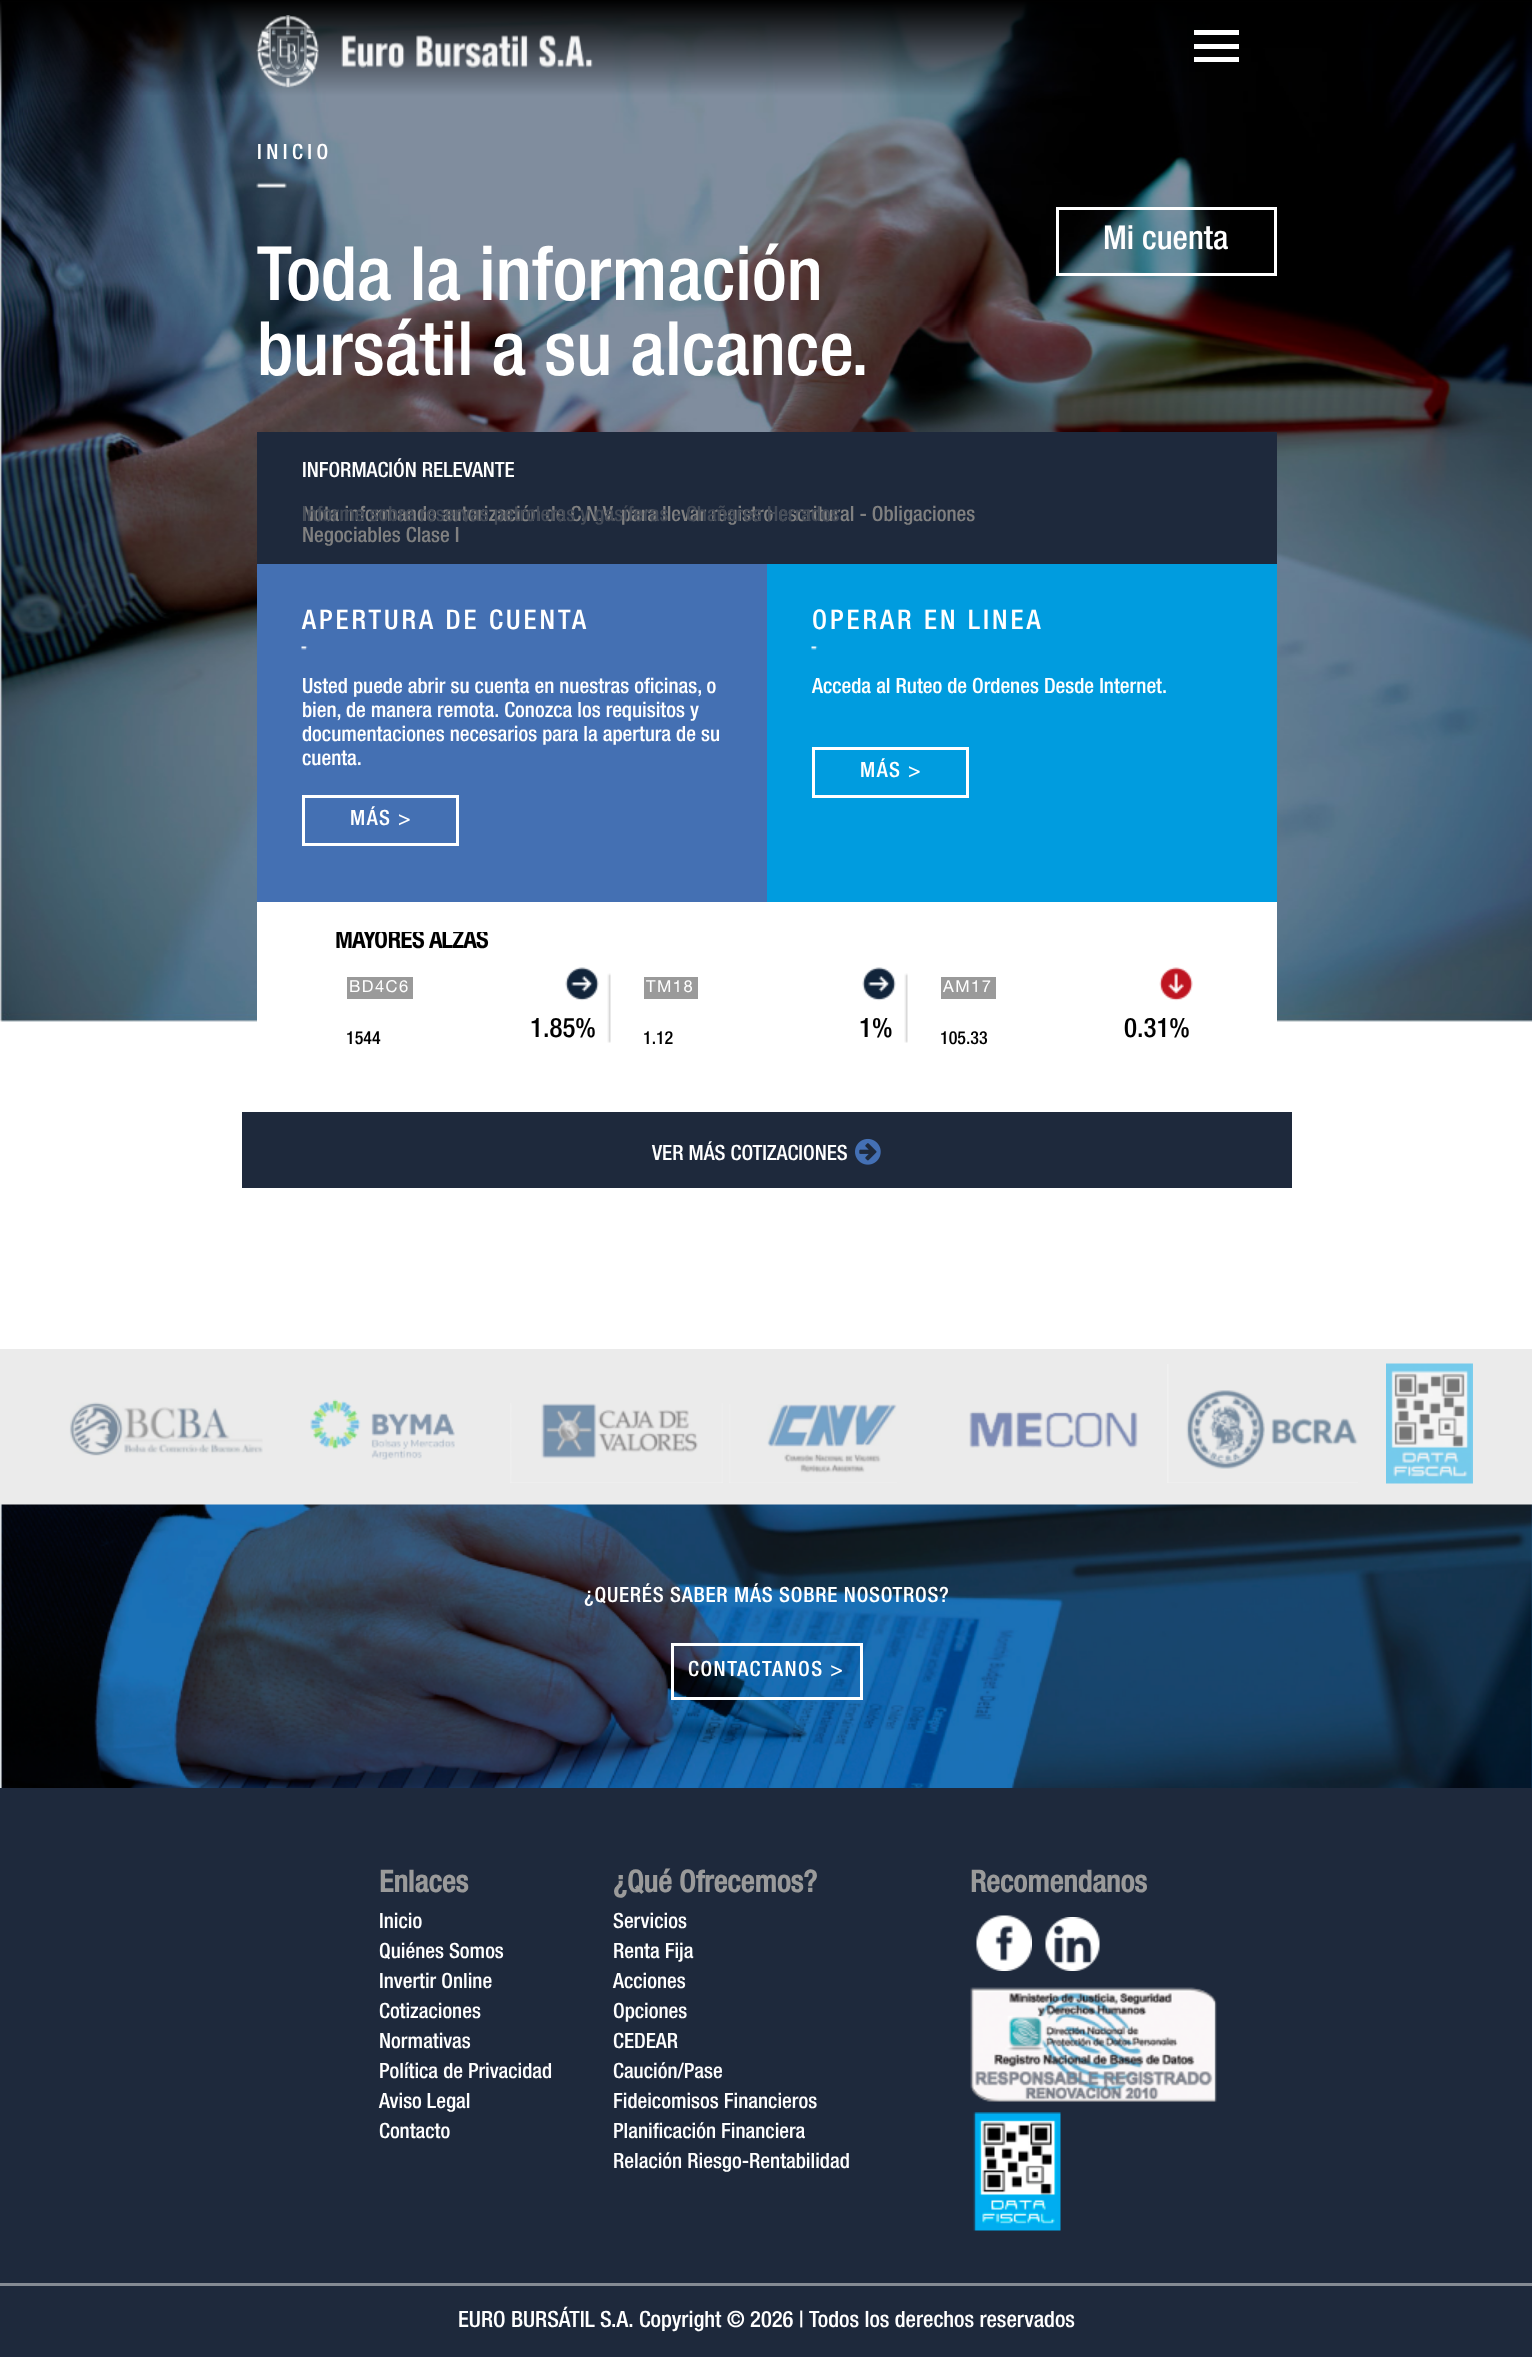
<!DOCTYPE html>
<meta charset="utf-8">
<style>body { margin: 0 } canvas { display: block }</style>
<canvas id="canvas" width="1532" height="2357"></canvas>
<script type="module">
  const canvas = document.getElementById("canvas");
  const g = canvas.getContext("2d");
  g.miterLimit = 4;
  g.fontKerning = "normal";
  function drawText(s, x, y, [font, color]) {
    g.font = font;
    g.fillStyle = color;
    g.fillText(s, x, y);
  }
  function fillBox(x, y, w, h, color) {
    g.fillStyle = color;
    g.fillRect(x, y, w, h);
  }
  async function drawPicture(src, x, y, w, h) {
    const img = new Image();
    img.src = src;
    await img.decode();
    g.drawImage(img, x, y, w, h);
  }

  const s1 = ["500 21px Helvetica Neue", "#FFFFFF"];
  const s2 = ["500 33px Helvetica Neue", "#FFFFFF"];
  const s3 = ["500 75px Helvetica Neue", "#FFFFFF"];
  const s4 = ["500 21px Helvetica Neue", "#808080"];
  const s5 = ["500 21px Helvetica Neue", "#444B57"];
  const s6 = ["500 27px Helvetica Neue", "#FFFFFF"];
  const s7 = ["bold 24px Helvetica Neue", "#000000"];
  const s8 = ["16.5px Helvetica Neue", "#FFFFFF"];
  const s9 = ["500 18px Helvetica Neue", "#000000"];
  const s10 = ["500 27px Helvetica Neue", "#000000"];
  const s11 = ["bold 30px Helvetica Neue", "#9A9A9A"];
  const s12 = ["500 22.5px Helvetica Neue", "#FFFFFF"];

  fillBox(0, 0, 1532, 2357, "#FFFFFF");
  await drawPicture("pic1.png", 0, 0, 1532, 1022);
  await drawPicture("pic2.png", 256, 15, 337, 73);
  fillBox(1194, 30, 45, 5, "#FFFFFF");
  fillBox(1194, 44, 45, 5, "#FFFFFF");
  fillBox(1194, 57, 45, 5, "#FFFFFF");
  await drawPicture("pic3.png", 256, 182, 31, 6);
  g.letterSpacing = "4.5px";
  drawText("INICIO", 257, 159, s1);
  g.strokeStyle = "#FFFFFF";
  g.lineWidth = 3;
  g.strokeRect(1057.5, 208.5, 218, 66);
  g.letterSpacing = "0px";
  drawText("Mi cuenta", 1103, 249, s2);
  drawText("Toda la información", 257, 300, s3);
  drawText("bursátil a su alcance.", 257, 375, s3);
  fillBox(257, 432, 1020, 132, "#1E293C");
  drawText("INFORMACIÓN RELEVANTE", 302, 477, s1);
  drawText("Nota informando autorización de C.N.V. para llevar registro escritural - Obligaciones", 302, 521, s4);
  drawText("Negociables Clase I", 302, 542, s4);
  drawText("Informe sobre reservas petroleras y gasíferas - Chañares Herrados", 302, 521, s5);
  fillBox(257, 564, 510, 338, "#4470B3");
  await drawPicture("pic4.png", 301, 646, 7, 4);
  g.letterSpacing = "3px";
  drawText("APERTURA DE CUENTA", 302, 629, s6);
  g.letterSpacing = "0px";
  drawText("Usted puede abrir su cuenta en nuestras oficinas, o", 302, 693, s1);
  drawText("bien, de manera remota. Conozca los requisitos y", 302, 717, s1);
  drawText("documentaciones necesarios para la apertura de su", 302, 741, s1);
  drawText("cuenta.", 302, 765, s1);
  g.strokeRect(303.5, 796.5, 154, 48);
  g.letterSpacing = "1.5px";
  drawText("MÁS >", 350, 825, s1);
  fillBox(767, 564, 510, 338, "#009CDF");
  await drawPicture("pic5.png", 811, 646, 7, 4);
  g.letterSpacing = "3px";
  drawText("OPERAR EN LINEA", 812, 629, s6);
  g.letterSpacing = "0px";
  drawText("Acceda al Ruteo de Ordenes Desde Internet.", 812, 693, s1);
  g.strokeRect(813.5, 748.5, 154, 48);
  g.letterSpacing = "1.5px";
  drawText("MÁS >", 860, 777, s1);
  fillBox(257, 902, 1020, 120, "#FFFFFF");
  g.save();
  g.beginPath();
  g.rect(317, 932, 900, 139);
  g.clip();
  g.letterSpacing = "0px";
  drawText("MAYORES ALZAS", 335, 948, s7);
  g.restore();
  await drawPicture("pic6.png", 607, 973, 4, 70);
  fillBox(347, 977, 66, 22, "#9A9A9A");
  drawText("BD4C6", 349, 992, s8);
  g.letterSpacing = "0px";
  drawText("1544", 346, 1044, s9);
  await drawPicture("pic7.png", 565, 967, 34, 34);
  drawText("1.85%", 530, 1037, s10);
  await drawPicture("pic6.png", 904, 973, 4, 70);
  fillBox(644, 977, 54, 22, "#9A9A9A");
  g.letterSpacing = "1.5px";
  drawText("TM18", 646, 992, s8);
  g.letterSpacing = "0px";
  drawText("1.12", 643, 1044, s9);
  await drawPicture("pic8.png", 862, 967, 34, 34);
  drawText("1%", 859, 1037, s10);
  fillBox(941, 977, 55, 22, "#9A9A9A");
  g.letterSpacing = "1.5px";
  drawText("AM17", 943, 992, s8);
  g.letterSpacing = "0px";
  drawText("105.33", 940, 1044, s9);
  await drawPicture("pic9.png", 1159, 967, 34, 34);
  drawText("0.31%", 1124, 1037, s10);
  fillBox(242, 1112, 1050, 76, "#1E293C");
  drawText("VER MÁS COTIZACIONES", 652, 1160, s1);
  await drawPicture("pic10.png", 855, 1138, 26, 27);
  fillBox(0, 1349, 1532, 439, "#EBEBEB");
  await drawPicture("pic11.png", 69, 1402, 194, 54);
  await drawPicture("pic12.png", 310, 1399, 145, 61);
  await drawPicture("pic13.png", 510, 1403, 213, 80);
  await drawPicture("pic14.png", 729, 1404, 168, 79);
  await drawPicture("pic15.png", 969, 1411, 169, 37);
  await drawPicture("pic16.png", 1167, 1364, 191, 119);
  await drawPicture("pic17.png", 1386, 1363, 87, 121);
  await drawPicture("pic18.png", 0, 1504, 1532, 284);
  g.letterSpacing = "0.75px";
  drawText("¿QUERÉS SABER MÁS SOBRE NOSOTROS?", 584, 1602, s1);
  g.strokeRect(672.5, 1644.5, 189, 54);
  g.letterSpacing = "1.5px";
  drawText("CONTACTANOS >", 688, 1676, s1);
  fillBox(0, 1788, 1532, 569, "#1E293C");
  g.letterSpacing = "0px";
  drawText("Enlaces", 379, 1892, s11);
  drawText("Inicio", 379, 1928, s1);
  drawText("Quiénes Somos", 379, 1958, s1);
  drawText("Invertir Online", 379, 1988, s1);
  drawText("Cotizaciones", 379, 2018, s1);
  drawText("Normativas", 379, 2048, s1);
  drawText("Política de Privacidad", 379, 2078, s1);
  drawText("Aviso Legal", 379, 2108, s1);
  drawText("Contacto", 379, 2138, s1);
  drawText("¿Qué Ofrecemos?", 613, 1892, s11);
  drawText("Servicios", 613, 1928, s1);
  drawText("Renta Fija", 613, 1958, s1);
  drawText("Acciones", 613, 1988, s1);
  drawText("Opciones", 613, 2018, s1);
  drawText("CEDEAR", 613, 2048, s1);
  drawText("Caución/Pase", 613, 2078, s1);
  drawText("Fideicomisos Financieros", 613, 2108, s1);
  drawText("Planificación Financiera", 613, 2138, s1);
  drawText("Relación Riesgo-Rentabilidad", 613, 2168, s1);
  drawText("Recomendanos", 970, 1892, s11);
  await drawPicture("pic19.png", 976, 1915, 56, 56);
  await drawPicture("pic20.png", 1045, 1917, 55, 54);
  await drawPicture("pic21.png", 970, 1987, 247, 115);
  await drawPicture("pic22.png", 973, 2112, 88, 119);
  fillBox(0, 2283, 1532, 3, "#848A93");
  drawText("EURO BURSÁTIL S.A. Copyright © 2026 |", 458, 2327, s12);
  drawText("Todos los derechos reservados", 809, 2327, s12);
</script>
